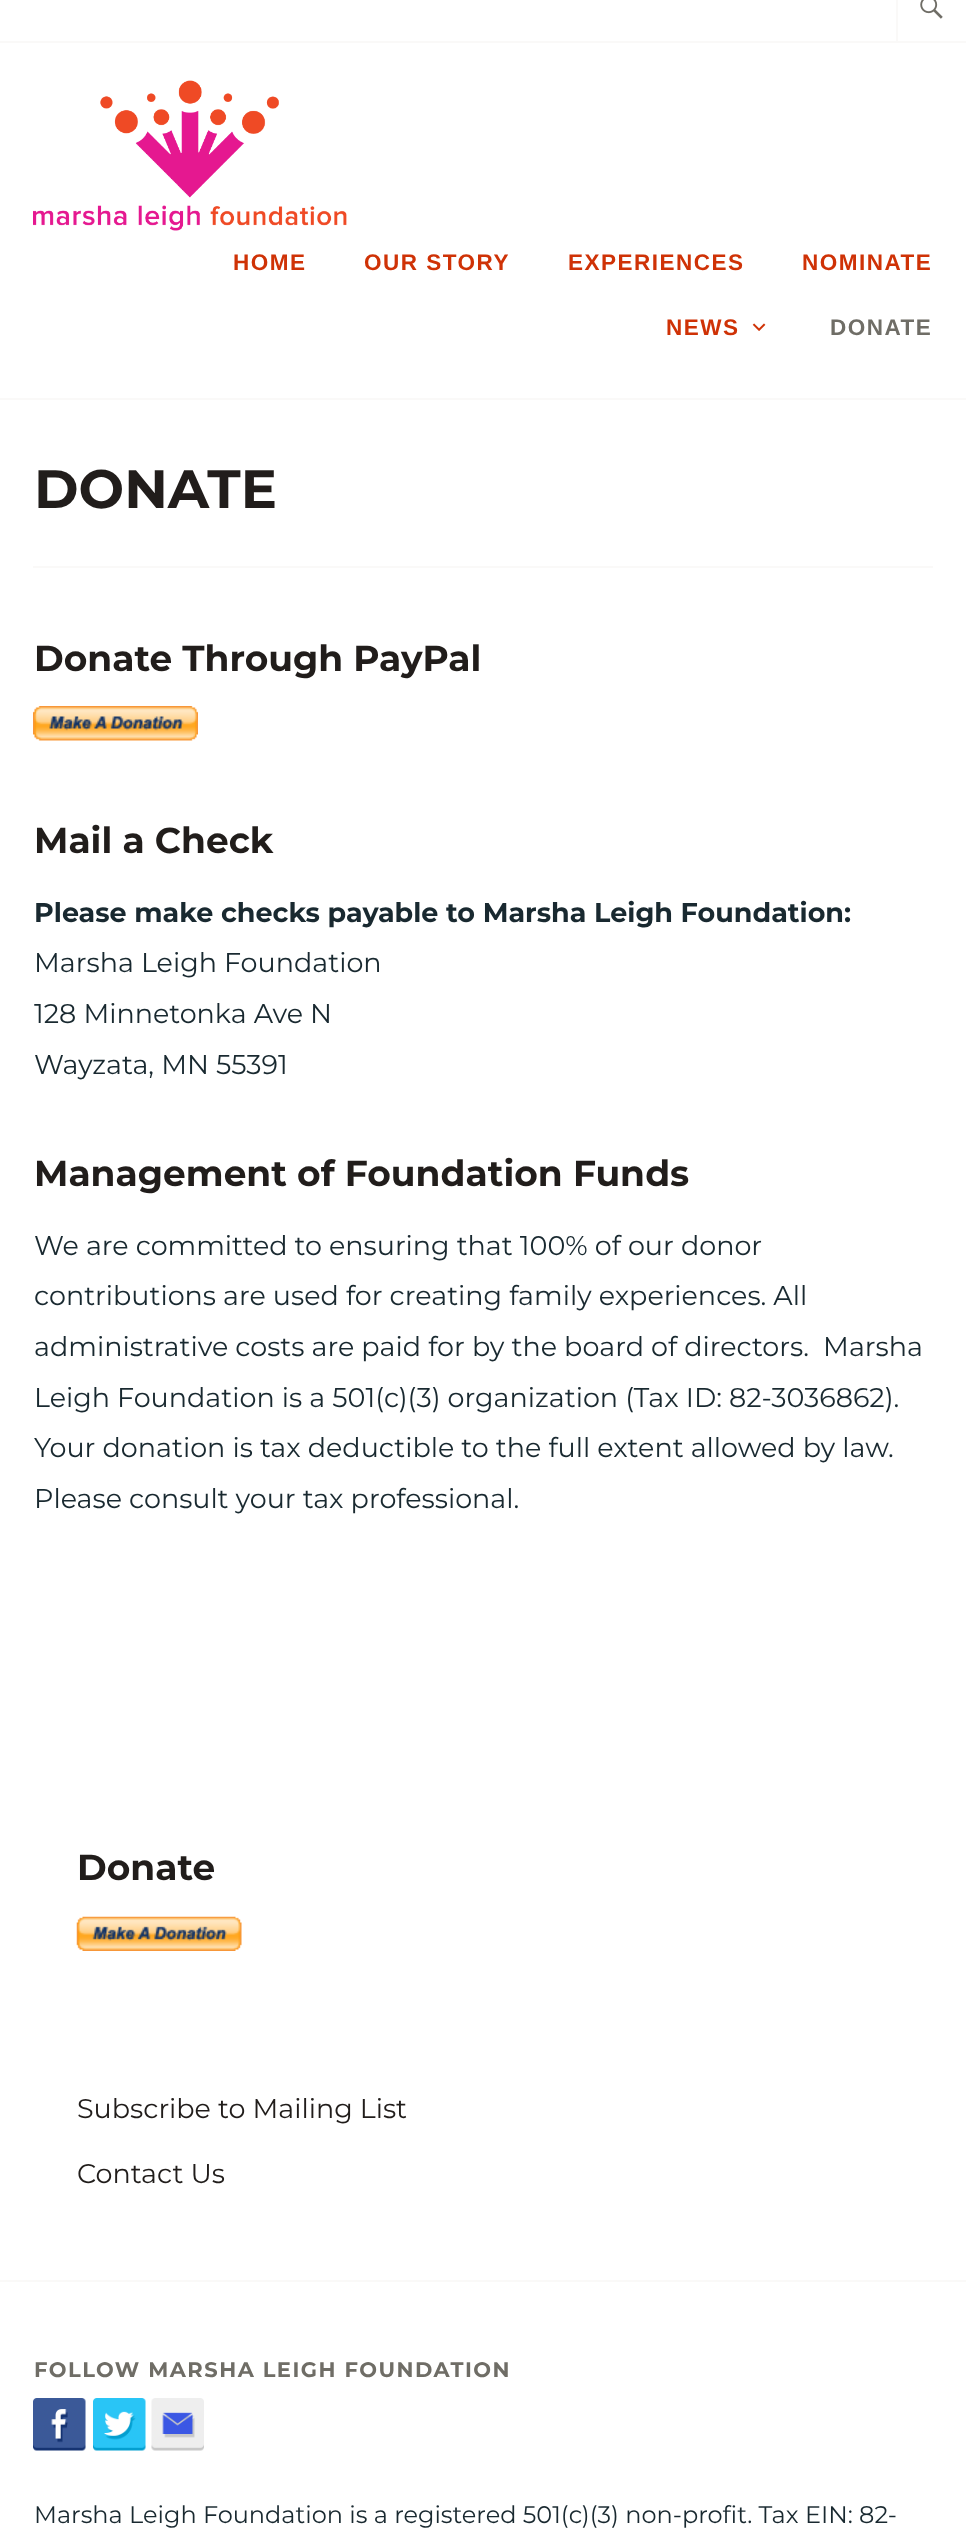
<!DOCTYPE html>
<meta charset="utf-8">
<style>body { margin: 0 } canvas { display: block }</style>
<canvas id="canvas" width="966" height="2543"></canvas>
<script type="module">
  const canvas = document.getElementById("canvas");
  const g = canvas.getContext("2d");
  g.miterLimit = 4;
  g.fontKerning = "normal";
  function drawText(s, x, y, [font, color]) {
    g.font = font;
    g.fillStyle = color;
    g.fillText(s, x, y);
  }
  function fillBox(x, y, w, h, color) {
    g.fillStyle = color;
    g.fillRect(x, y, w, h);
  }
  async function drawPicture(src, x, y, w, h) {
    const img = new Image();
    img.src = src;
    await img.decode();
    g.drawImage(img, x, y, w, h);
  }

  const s1 = ["bold 22.5px Liberation Sans", "#CF3206"];
  const s2 = ["bold 22.5px Liberation Sans", "#6F6D66"];
  const s3 = ["bold 54px Montserrat", "#211D1B"];
  const s4 = ["bold 36px Montserrat", "#211D1B"];
  const s5 = ["bold 27px Montserrat", "#192930"];
  const s6 = ["27px Montserrat", "#192930"];
  const s7 = ["27px Montserrat", "#211D1B"];
  const s8 = ["bold 21px Montserrat", "#6F6D66"];
  const s9 = ["24px Montserrat", "#192930"];

  fillBox(0, 0, 966, 2543, "#FFFFFF");
  fillBox(0, 398, 966, 2, "#FAF9F8");
  fillBox(0, 41, 966, 2, "#FAF9F8");
  fillBox(896, 0, 2, 41, "#FAF9F8");
  await drawPicture("pic1.png", 920, 0, 23, 19);
  await drawPicture("pic2.png", 33, 80, 314, 151);
  g.letterSpacing = "1.5px";
  drawText("HOME", 233, 270, s1);
  drawText("OUR STORY", 364, 270, s1);
  drawText("EXPERIENCES", 568, 270, s1);
  drawText("NOMINATE", 802, 270, s1);
  drawText("NEWS", 666, 335, s1);
  await drawPicture("pic3.png", 752, 323, 14, 8);
  drawText("DONATE", 830, 335, s2);
  fillBox(33, 566, 900, 2, "#FAF9F8");
  g.letterSpacing = "0px";
  drawText("DONATE", 34, 508, s3);
  drawText("Donate Through PayPal", 34, 671, s4);
  await drawPicture("pic4.png", 33, 706, 165, 35);
  drawText("Mail a Check", 34, 853, s4);
  drawText("Please make checks payable to Marsha Leigh Foundation:", 34, 922, s5);
  drawText("Marsha Leigh Foundation", 34, 972, s6);
  drawText("128 Minnetonka Ave N", 34, 1023, s6);
  drawText("Wayzata, MN 55391", 34, 1074, s6);
  drawText("Management of Foundation Funds", 34, 1186, s4);
  drawText("We are committed to ensuring that 100% of our donor", 34, 1255, s6);
  drawText("contributions are used for creating family experiences. All", 34, 1305, s6);
  drawText("administrative costs are paid for by the board of directors.  Marsha", 34, 1356, s6);
  drawText("Leigh Foundation is a 501(c)(3) organization (Tax ID: 82-3036862).", 34, 1407, s6);
  drawText("Your donation is tax deductible to the full extent allowed by law.", 34, 1457, s6);
  drawText("Please consult your tax professional.", 34, 1508, s6);
  drawText("Donate", 77, 1880, s4);
  await drawPicture("pic5.png", 76, 1916, 166, 35);
  drawText("Subscribe to Mailing List", 77, 2118, s7);
  drawText("Contact Us", 77, 2183, s7);
  fillBox(0, 2280, 966, 2, "#FAF9F8");
  g.letterSpacing = "1.5px";
  drawText("FOLLOW MARSHA LEIGH FOUNDATION", 34, 2377, s8);
  await drawPicture("pic6.png", 33, 2398, 53, 53);
  await drawPicture("pic7.png", 93, 2398, 53, 53);
  await drawPicture("pic8.png", 151, 2398, 53, 53);
  g.letterSpacing = "0px";
  drawText("Marsha Leigh Foundation is a registered 501(c)(3) non-profit. Tax EIN: 82-", 34, 2523, s9);
</script>
